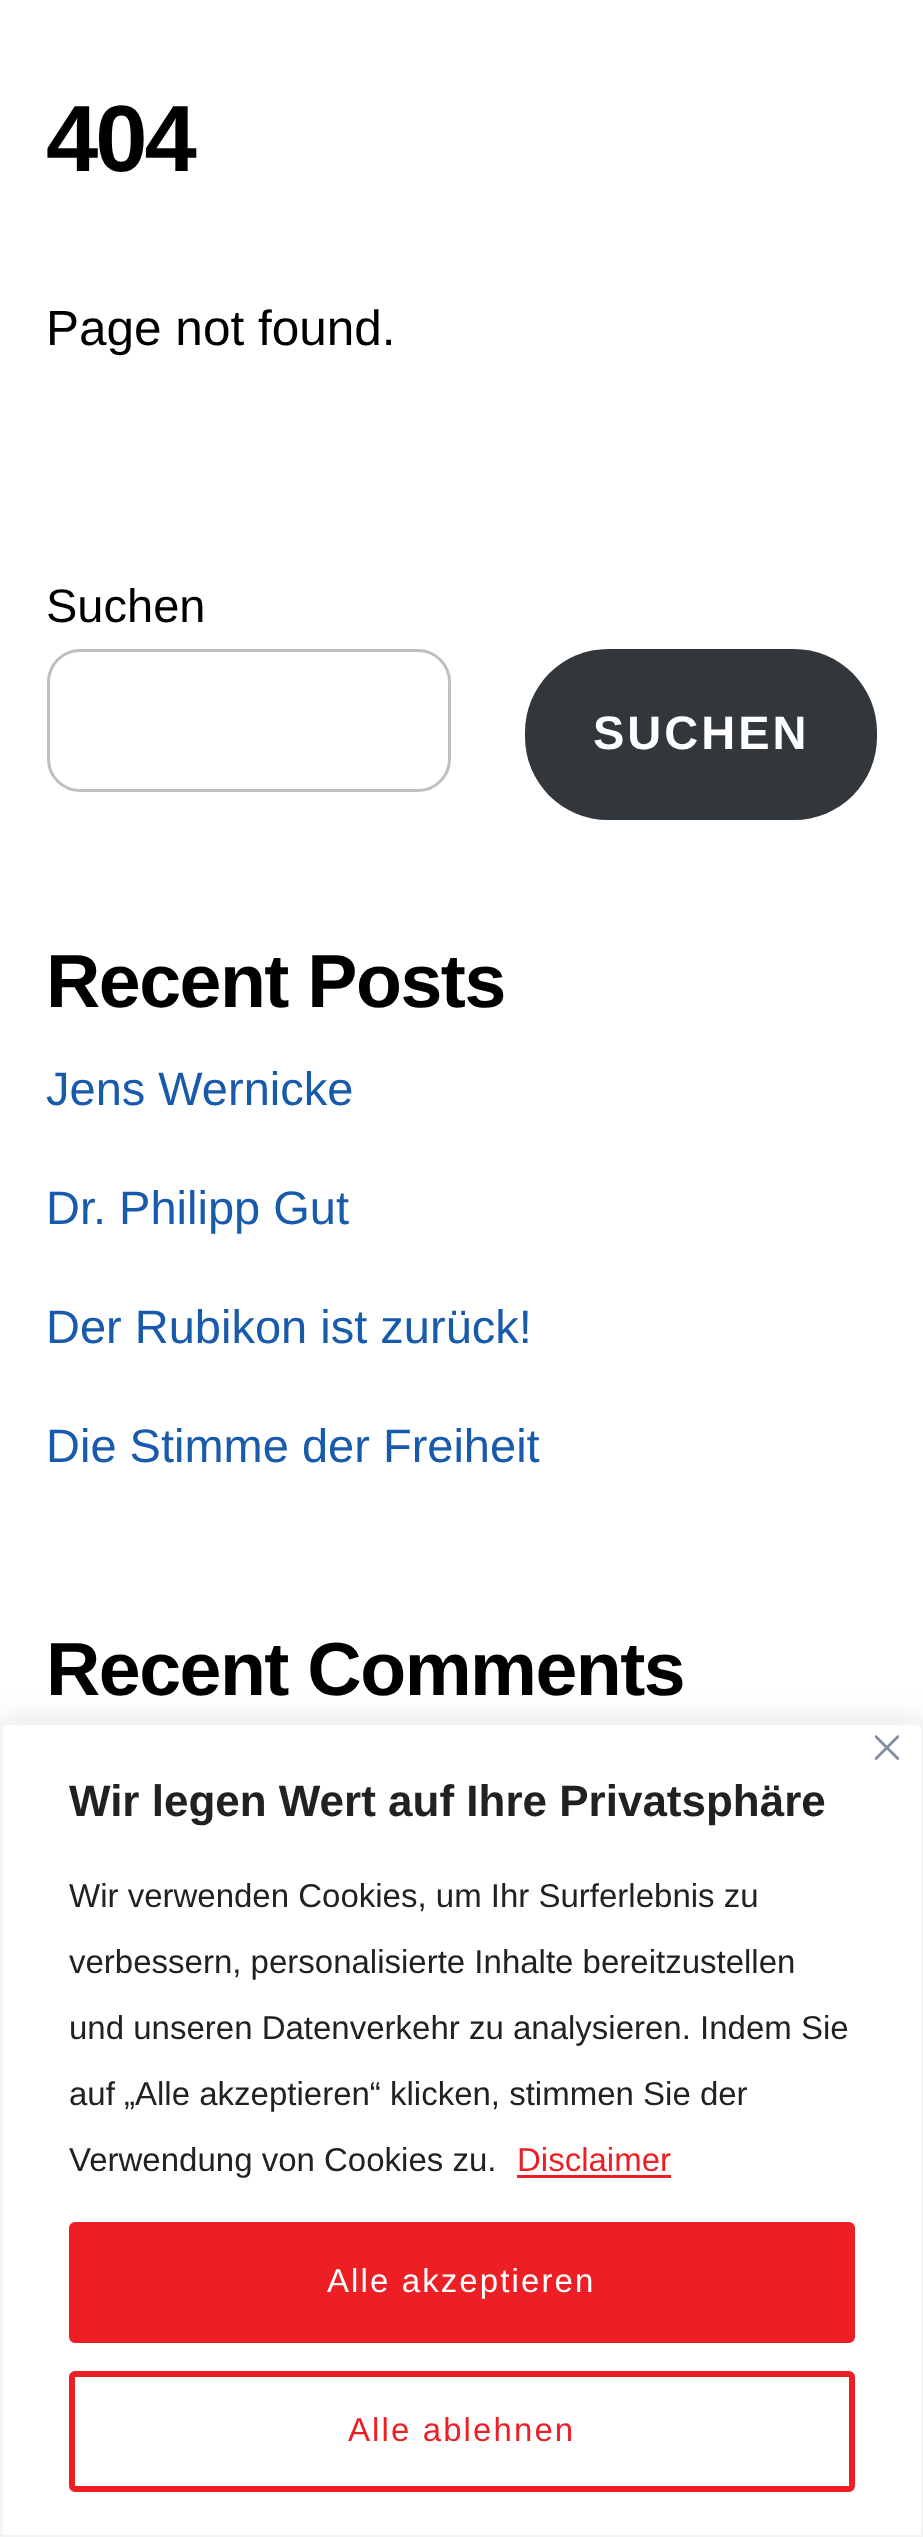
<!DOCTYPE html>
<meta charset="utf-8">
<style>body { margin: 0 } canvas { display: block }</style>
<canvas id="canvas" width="923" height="2537"></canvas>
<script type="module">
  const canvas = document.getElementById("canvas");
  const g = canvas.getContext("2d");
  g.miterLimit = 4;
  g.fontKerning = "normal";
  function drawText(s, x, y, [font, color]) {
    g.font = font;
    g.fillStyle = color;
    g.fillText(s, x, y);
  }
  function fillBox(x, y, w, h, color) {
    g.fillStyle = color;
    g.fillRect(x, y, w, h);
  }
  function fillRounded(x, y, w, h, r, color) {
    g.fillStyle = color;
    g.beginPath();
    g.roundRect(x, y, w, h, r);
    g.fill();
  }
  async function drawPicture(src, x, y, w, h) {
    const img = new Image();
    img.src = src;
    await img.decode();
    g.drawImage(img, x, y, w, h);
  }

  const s1 = ["bold 94px Liberation Sans", "#000000"];
  const s2 = ["49.5px Liberation Sans", "#000000"];
  const s3 = ["47px Liberation Sans", "#000000"];
  const s4 = ["bold 47px Liberation Sans", "#FFFFFF"];
  const s5 = ["bold 75.25px Liberation Sans", "#000000"];
  const s6 = ["47px Liberation Sans", "#185BAC"];
  const s7 = ["bold 44px Liberation Sans", "#212121"];
  const s8 = ["33px Liberation Sans", "#212121"];
  const s9 = ["33px Liberation Sans", "#ED1E24"];
  const s10 = ["33px Liberation Sans", "#FFFFFF"];

  fillBox(0, 0, 923, 2537, "#FFFFFF");
  g.letterSpacing = "-3px";
  drawText("404", 46, 171, s1);
  g.letterSpacing = "0px";
  drawText("Page not found.", 46, 345, s2);
  drawText("Suchen", 46, 622, s3);
  g.beginPath();
  g.roundRect(48.5, 650.5, 401, 140, 31.5);
  g.strokeStyle = "#BFBFBF";
  g.lineWidth = 3;
  g.stroke();
  fillRounded(525, 649, 352, 171, 83, "#32373C");
  g.letterSpacing = "3px";
  drawText("SUCHEN", 593, 749, s4);
  g.letterSpacing = "-1.5px";
  drawText("Recent Posts", 46, 1007, s5);
  g.letterSpacing = "0px";
  drawText("Jens Wernicke", 46, 1105, s6);
  drawText("Dr. Philipp Gut", 46, 1224, s6);
  drawText("Der Rubikon ist zurück!", 46, 1343, s6);
  drawText("Die Stimme der Freiheit", 46, 1462, s6);
  g.letterSpacing = "-1.5px";
  drawText("Recent Comments", 46, 1695, s5);
  g.fillStyle = "rgba(172, 171, 171, 0.3)";
  g.filter = "blur(14px)";
  g.beginPath();
  g.rect(0, 1719, 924, 817);
  g.fill();
  g.filter = "none";
  g.fillStyle = "#FFFFFF";
  g.beginPath();
  g.rect(1.5, 1723.5, 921, 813);
  g.fill();
  g.strokeStyle = "#F4F4F4";
  g.stroke();
  await drawPicture("pic1.png", 875, 1735, 24, 25);
  g.letterSpacing = "0px";
  drawText("Wir legen Wert auf Ihre Privatsphäre", 69, 1816, s7);
  drawText("Wir verwenden Cookies, um Ihr Surferlebnis zu", 69, 1907, s8);
  drawText("verbessern, personalisierte Inhalte bereitzustellen", 69, 1973, s8);
  drawText("und unseren Datenverkehr zu analysieren. Indem Sie", 69, 2039, s8);
  drawText("auf „Alle akzeptieren“ klicken, stimmen Sie der", 69, 2105, s8);
  drawText("Verwendung von Cookies zu.", 69, 2171, s8);
  drawText("Disclaimer", 517, 2171, s9);
  fillBox(517, 2175, 154, 3, "#ED1E24");
  g.beginPath();
  g.roundRect(72, 2225, 780, 115, 3);
  g.fill();
  g.strokeStyle = "#ED1E24";
  g.lineWidth = 6;
  g.stroke();
  g.letterSpacing = "2.1px";
  drawText("Alle akzeptieren", 327, 2292, s10);
  g.beginPath();
  g.roundRect(72, 2374, 780, 115, 3);
  g.stroke();
  drawText("Alle ablehnen", 348, 2441, s9);
</script>
